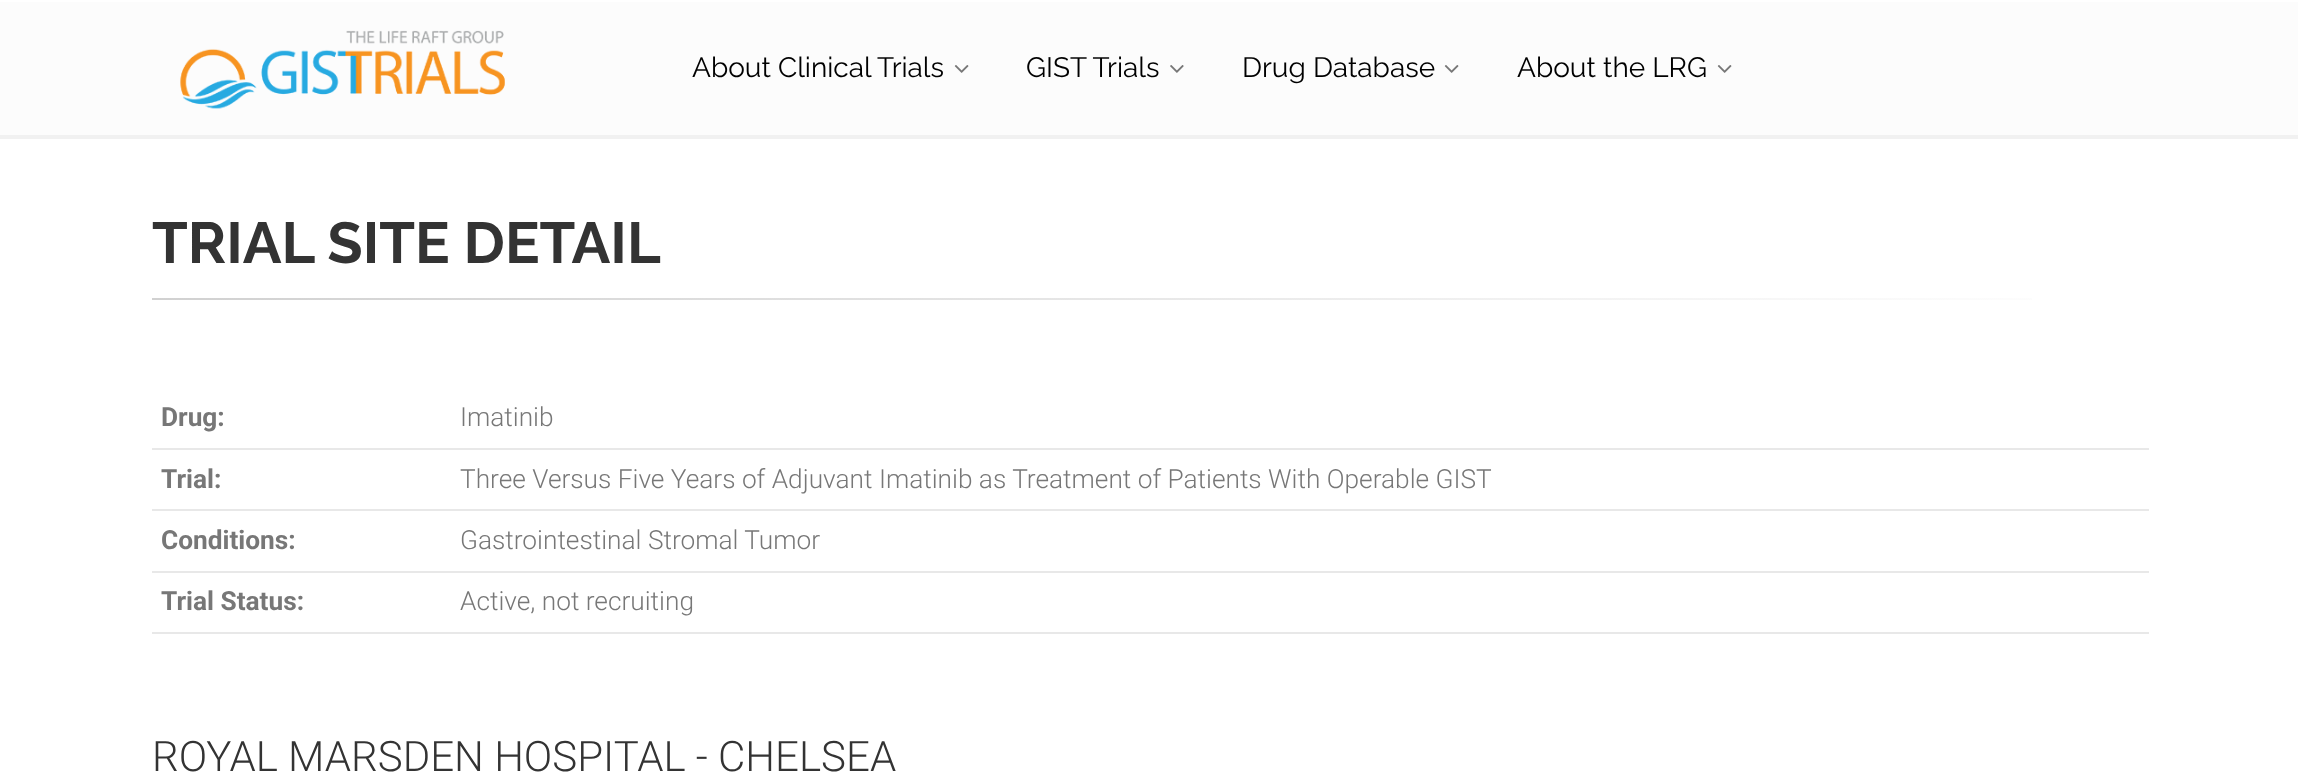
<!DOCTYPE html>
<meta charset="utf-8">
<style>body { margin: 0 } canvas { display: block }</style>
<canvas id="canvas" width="2298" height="774"></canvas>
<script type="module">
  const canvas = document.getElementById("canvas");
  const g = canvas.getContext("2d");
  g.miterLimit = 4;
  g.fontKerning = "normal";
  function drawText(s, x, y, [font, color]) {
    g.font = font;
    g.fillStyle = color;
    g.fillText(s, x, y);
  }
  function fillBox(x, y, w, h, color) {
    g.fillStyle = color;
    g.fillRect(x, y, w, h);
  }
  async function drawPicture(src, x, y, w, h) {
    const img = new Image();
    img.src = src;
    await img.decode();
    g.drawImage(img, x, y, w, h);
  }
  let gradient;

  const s1 = ["28px Raleway", "#000000"];
  const s2 = ["bold 57.75px Raleway", "#333333"];
  const s3 = ["bold 26.25px Roboto", "#777777"];
  const s4 = ["300 26.25px Roboto", "#777777"];
  const s5 = ["300 42px Roboto", "#333333"];

  fillBox(0, 0, 2298, 774, "#FFFFFF");
  fillBox(0, 2, 2298, 133, "#FCFCFC");
  fillBox(0, 135, 2298, 4, "#F1F1F1");
  await drawPicture("pic1.png", 180, 30, 325, 79);
  drawText("About Clinical Trials", 692, 77, s1);
  await drawPicture("pic2.png", 954, 65, 15, 8);
  drawText("GIST Trials", 1026, 77, s1);
  await drawPicture("pic3.png", 1170, 65, 14, 8);
  drawText("Drug Database", 1242, 77, s1);
  await drawPicture("pic2.png", 1444, 65, 15, 8);
  drawText("About the LRG", 1517, 77, s1);
  await drawPicture("pic2.png", 1717, 65, 15, 8);
  drawText("TRIAL SITE DETAIL", 152, 263, s2);
  gradient = g.createLinearGradient(152, 298, 2147, 298);
  gradient.addColorStop(0, "#D1D1D1");
  gradient.addColorStop(0.35, "#E0E0E0");
  gradient.addColorStop(0.7, "#F2F2F2");
  gradient.addColorStop(1, "#FFFFFF");
  g.fillStyle = gradient;
  g.fillRect(152, 298, 1880, 2);
  fillBox(152, 448, 1997, 2, "#E8E8E8");
  drawText("Drug:", 161, 426, s3);
  drawText("Imatinib", 460, 426, s4);
  fillBox(152, 509, 1997, 2, "#E8E8E8");
  drawText("Trial:", 161, 488, s3);
  drawText("Three Versus Five Years of Adjuvant Imatinib as Treatment of Patients With Operable GIST", 460, 488, s4);
  fillBox(152, 571, 1997, 2, "#E8E8E8");
  drawText("Conditions:", 161, 549, s3);
  drawText("Gastrointestinal Stromal Tumor", 460, 549, s4);
  fillBox(152, 632, 1997, 2, "#E8E8E8");
  drawText("Trial Status:", 161, 610, s3);
  drawText("Active, not recruiting", 460, 610, s4);
  drawText("ROYAL MARSDEN HOSPITAL - CHELSEA", 152, 771, s5);
</script>
